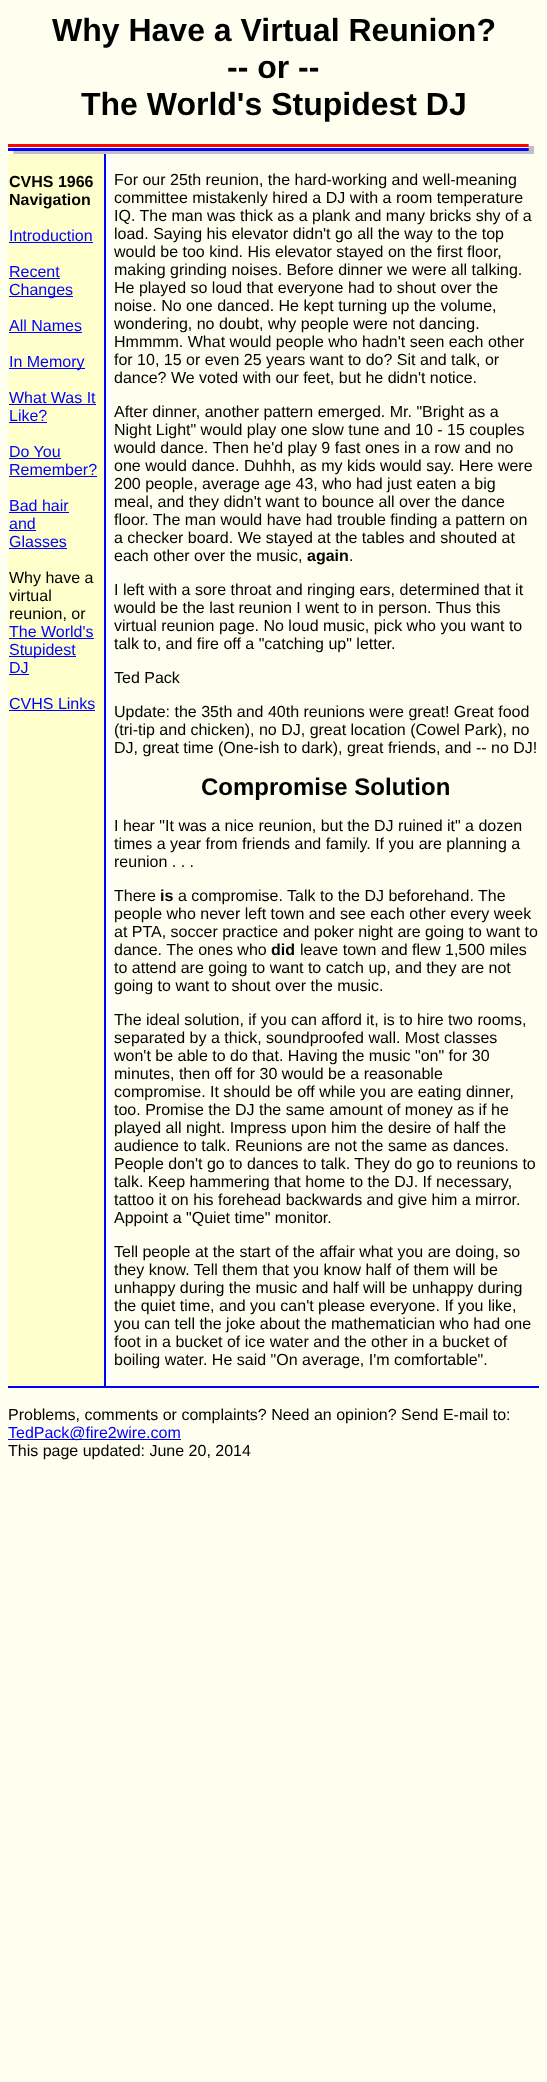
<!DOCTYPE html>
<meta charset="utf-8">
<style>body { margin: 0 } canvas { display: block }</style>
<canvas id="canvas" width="547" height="2082"></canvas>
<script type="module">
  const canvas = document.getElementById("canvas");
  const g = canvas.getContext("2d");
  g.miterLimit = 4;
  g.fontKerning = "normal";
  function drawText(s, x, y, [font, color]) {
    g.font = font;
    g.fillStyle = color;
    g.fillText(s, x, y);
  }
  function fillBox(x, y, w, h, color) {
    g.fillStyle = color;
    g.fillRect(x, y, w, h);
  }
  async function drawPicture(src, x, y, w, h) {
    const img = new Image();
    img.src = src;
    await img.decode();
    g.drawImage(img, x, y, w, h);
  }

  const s1 = ["bold 32px Liberation Sans", "#000000"];
  const s2 = ["bold 16px Liberation Sans", "#000000"];
  const s3 = ["16px Liberation Sans", "#0000FF"];
  const s4 = ["16px Liberation Sans", "#000000"];
  const s5 = ["bold 24px Liberation Sans", "#000000"];

  fillBox(0, 0, 547, 2082, "#FFFFF0");
  drawText("Why Have a Virtual Reunion?", 52, 41, s1);
  drawText("-- or --", 227, 78, s1);
  drawText("The World's Stupidest DJ", 81, 115, s1);
  await drawPicture("pic1.png", 8, 144, 526, 10);
  fillBox(8, 1386, 531, 2, "#0000FF");
  fillBox(8, 154, 96, 1232, "#FFFFCC");
  drawText("CVHS 1966", 9, 187, s2);
  drawText("Navigation", 9, 205, s2);
  drawText("Introduction", 9, 241, s3);
  fillBox(9, 242, 84, 1, "#0000FF");
  drawText("Recent", 9, 277, s3);
  fillBox(9, 278, 51, 1, "#0000FF");
  fillBox(9, 296, 64, 1, "#0000FF");
  drawText("Changes", 9, 295, s3);
  drawText("All Names", 9, 331, s3);
  fillBox(9, 332, 73, 1, "#0000FF");
  fillBox(9, 368, 76, 1, "#0000FF");
  drawText("In Memory", 9, 367, s3);
  drawText("What Was It", 9, 403, s3);
  fillBox(9, 404, 87, 1, "#0000FF");
  drawText("Like?", 9, 421, s3);
  fillBox(9, 422, 38, 1, "#0000FF");
  drawText("Do You", 9, 457, s3);
  fillBox(9, 458, 52, 1, "#0000FF");
  drawText("Remember?", 9, 475, s3);
  fillBox(9, 476, 88, 1, "#0000FF");
  drawText("Bad hair", 9, 511, s3);
  fillBox(9, 512, 60, 1, "#0000FF");
  drawText("and", 9, 529, s3);
  fillBox(9, 530, 27, 1, "#0000FF");
  drawText("Glasses", 9, 547, s3);
  fillBox(9, 548, 58, 1, "#0000FF");
  drawText("Why have a", 9, 583, s4);
  drawText("virtual", 9, 601, s4);
  drawText("reunion, or", 9, 619, s4);
  drawText("The World's", 9, 637, s3);
  fillBox(9, 638, 85, 1, "#0000FF");
  fillBox(9, 656, 67, 1, "#0000FF");
  drawText("Stupidest", 9, 655, s3);
  drawText("DJ", 9, 673, s3);
  fillBox(9, 674, 20, 1, "#0000FF");
  drawText("CVHS Links", 9, 709, s3);
  fillBox(9, 710, 86, 1, "#0000FF");
  fillBox(104, 154, 2, 1232, "#0000FF");
  fillBox(106, 154, 7, 1232, "#FFFFFF");
  drawText("For our 25th reunion, the hard-working and well-meaning", 114, 185, s4);
  drawText("committee mistakenly hired a DJ with a room temperature", 114, 203, s4);
  drawText("IQ. The man was thick as a plank and many bricks shy of a", 114, 221, s4);
  drawText("load. Saying his elevator didn't go all the way to the top", 114, 239, s4);
  drawText("would be too kind. His elevator stayed on the first floor,", 114, 257, s4);
  drawText("making grinding noises. Before dinner we were all talking.", 114, 275, s4);
  drawText("He played so loud that everyone had to shout over the", 114, 293, s4);
  drawText("noise. No one danced. He kept turning up the volume,", 114, 311, s4);
  drawText("wondering, no doubt, why people were not dancing.", 114, 329, s4);
  drawText("Hmmmm. What would people who hadn't seen each other", 114, 347, s4);
  drawText("for 10, 15 or even 25 years want to do? Sit and talk, or", 114, 365, s4);
  drawText("dance? We voted with our feet, but he didn't notice.", 114, 383, s4);
  drawText("After dinner, another pattern emerged. Mr. \"Bright as a", 114, 417, s4);
  drawText("Night Light\" would play one slow tune and 10 - 15 couples", 114, 435, s4);
  drawText("would dance. Then he'd play 9 fast ones in a row and no", 114, 453, s4);
  drawText("one would dance. Duhhh, as my kids would say. Here were", 114, 471, s4);
  drawText("200 people, average age 43, who had just eaten a big", 114, 489, s4);
  drawText("meal, and they didn't want to bounce all over the dance", 114, 507, s4);
  drawText("floor. The man would have had trouble finding a pattern on", 114, 525, s4);
  drawText("a checker board. We stayed at the tables and shouted at", 114, 543, s4);
  drawText("each other over the music,", 114, 561, s4);
  drawText("again", 307, 561, s2);
  drawText(".", 349, 561, s4);
  drawText("I left with a sore throat and ringing ears, determined that it", 114, 595, s4);
  drawText("would be the last reunion I went to in person. Thus this", 114, 613, s4);
  drawText("virtual reunion page. No loud music, pick who you want to", 114, 631, s4);
  drawText("talk to, and fire off a \"catching up\" letter.", 114, 649, s4);
  drawText("Ted Pack", 114, 683, s4);
  drawText("Update: the 35th and 40th reunions were great! Great food", 114, 717, s4);
  drawText("(tri-tip and chicken), no DJ, great location (Cowel Park), no", 114, 735, s4);
  drawText("DJ, great time (One-ish to dark), great friends, and -- no DJ!", 114, 753, s4);
  drawText("Compromise Solution", 201, 795, s5);
  drawText("I hear \"It was a nice reunion, but the DJ ruined it\" a dozen", 114, 831, s4);
  drawText("times a year from friends and family. If you are planning a", 114, 849, s4);
  drawText("reunion . . .", 114, 867, s4);
  drawText("There", 114, 901, s4);
  drawText("is", 160, 901, s2);
  drawText("a compromise. Talk to the DJ beforehand. The", 178, 901, s4);
  drawText("people who never left town and see each other every week", 114, 919, s4);
  drawText("at PTA, soccer practice and poker night are going to want to", 114, 937, s4);
  drawText("dance. The ones who", 114, 955, s4);
  drawText("did", 271, 955, s2);
  drawText("leave town and flew 1,500 miles", 300, 955, s4);
  drawText("to attend are going to want to catch up, and they are not", 114, 973, s4);
  drawText("going to want to shout over the music.", 114, 991, s4);
  drawText("The ideal solution, if you can afford it, is to hire two rooms,", 114, 1025, s4);
  drawText("separated by a thick, soundproofed wall. Most classes", 114, 1043, s4);
  drawText("won't be able to do that. Having the music \"on\" for 30", 114, 1061, s4);
  drawText("minutes, then off for 30 would be a reasonable", 114, 1079, s4);
  drawText("compromise. It should be off while you are eating dinner,", 114, 1097, s4);
  drawText("too. Promise the DJ the same amount of money as if he", 114, 1115, s4);
  drawText("played all night. Impress upon him the desire of half the", 114, 1133, s4);
  drawText("audience to talk. Reunions are not the same as dances.", 114, 1151, s4);
  drawText("People don't go to dances to talk. They do go to reunions to", 114, 1169, s4);
  drawText("talk. Keep hammering that home to the DJ. If necessary,", 114, 1187, s4);
  drawText("tattoo it on his forehead backwards and give him a mirror.", 114, 1205, s4);
  drawText("Appoint a \"Quiet time\" monitor.", 114, 1223, s4);
  drawText("Tell people at the start of the affair what you are doing, so", 114, 1257, s4);
  drawText("they know. Tell them that you know half of them will be", 114, 1275, s4);
  drawText("unhappy during the music and half will be unhappy during", 114, 1293, s4);
  drawText("the quiet time, and you can't please everyone. If you like,", 114, 1311, s4);
  drawText("you can tell the joke about the mathematician who had one", 114, 1329, s4);
  drawText("foot in a bucket of ice water and the other in a bucket of", 114, 1347, s4);
  drawText("boiling water. He said \"On average, I'm comfortable\".", 114, 1365, s4);
  drawText("Problems, comments or complaints? Need an opinion? Send E-mail to:", 8, 1420, s4);
  fillBox(8, 1439, 173, 1, "#0000FF");
  drawText("TedPack@fire2wire.com", 8, 1438, s3);
  drawText("This page updated: June 20, 2014", 8, 1456, s4);
</script>
